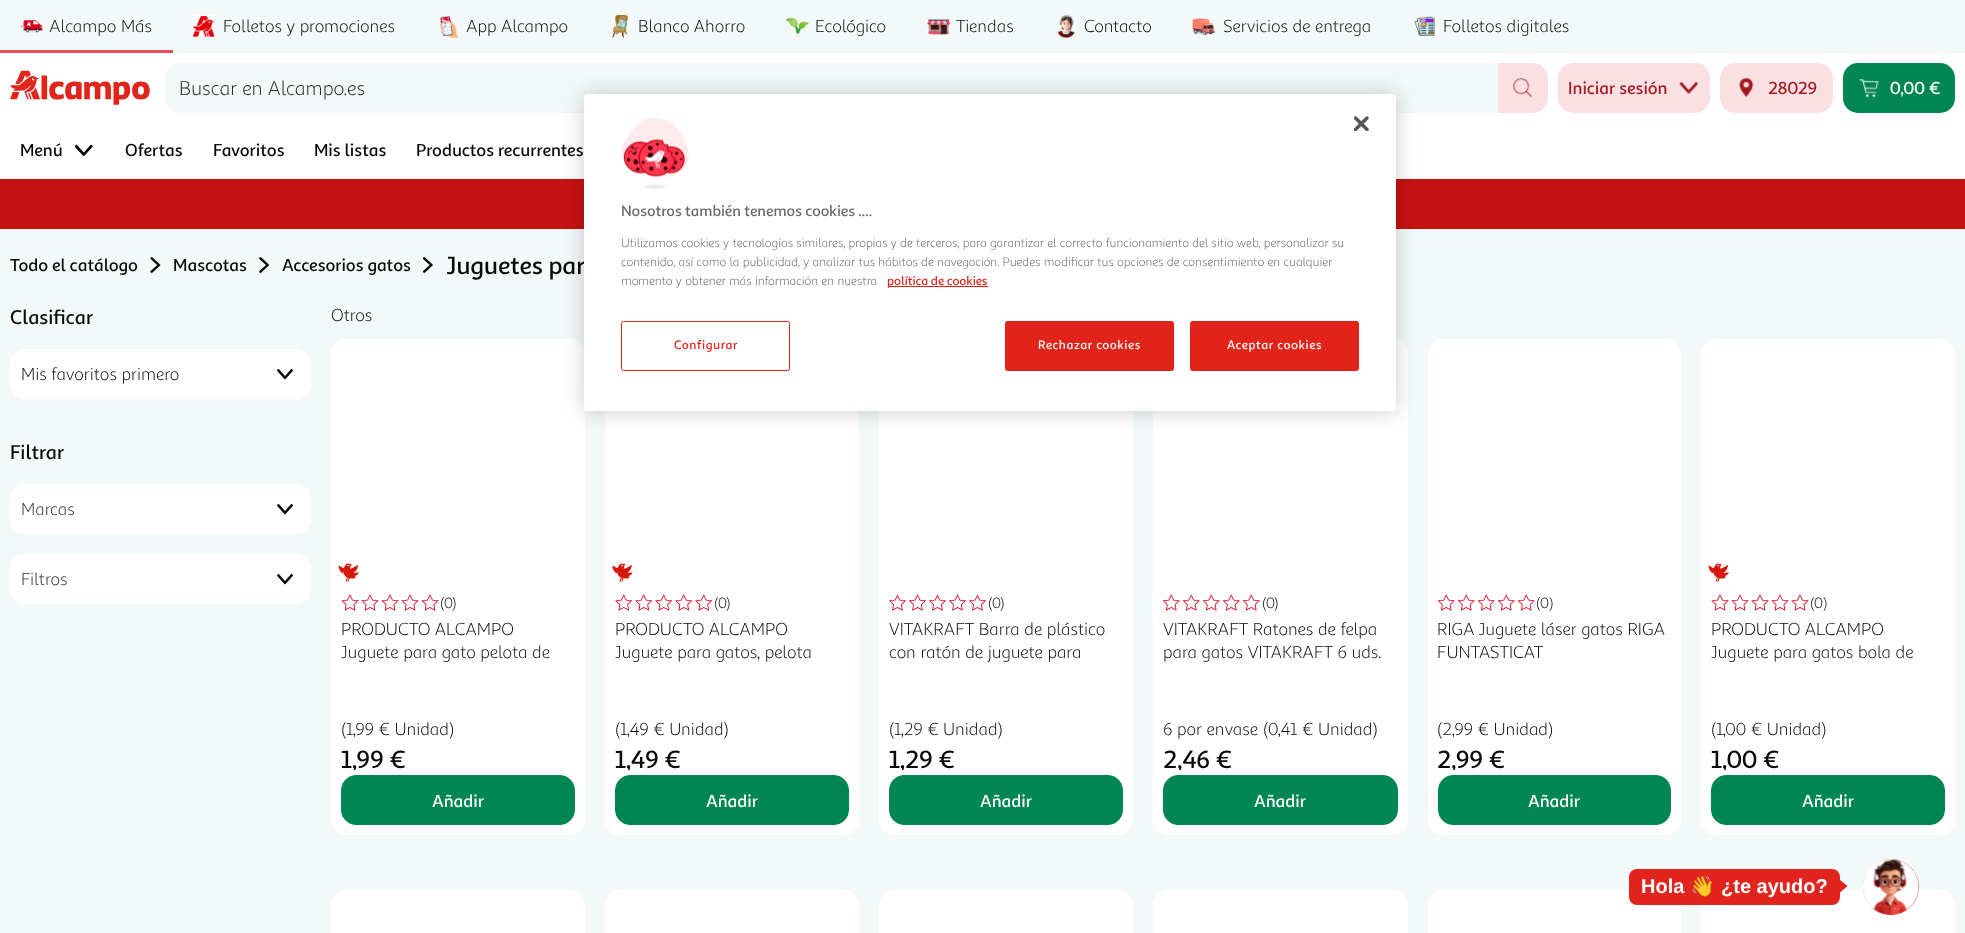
<!DOCTYPE html>
<meta charset="utf-8">
<style>body { margin: 0 } canvas { display: block }</style>
<canvas id="canvas" width="1965" height="933"></canvas>
<script type="module">
  const canvas = document.getElementById("canvas");
  const g = canvas.getContext("2d");
  g.miterLimit = 4;
  g.fontKerning = "normal";
  function drawText(s, x, y, [font, color]) {
    g.font = font;
    g.fillStyle = color;
    g.fillText(s, x, y);
  }
  function fillBox(x, y, w, h, color) {
    g.fillStyle = color;
    g.fillRect(x, y, w, h);
  }
  function fillRounded(x, y, w, h, r, color) {
    g.fillStyle = color;
    g.beginPath();
    g.roundRect(x, y, w, h, r);
    g.fill();
  }
  async function drawPicture(src, x, y, w, h) {
    const img = new Image();
    img.src = src;
    await img.decode();
    g.drawImage(img, x, y, w, h);
  }

  const s1 = ["17.5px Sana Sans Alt", "#0A0A0A"];
  const s2 = ["20px Sana Sans Alt", "#2E2E2E"];
  const s3 = ["500 17.5px Sana Sans Alt", "#A21A20"];
  const s4 = ["500 17.5px Sana Sans Alt", "#FFFFFF"];
  const s5 = ["500 17.5px Sana Sans Alt", "#0A0A0A"];
  const s6 = ["500 25px Sana Sans Alt", "#0A0A0A"];
  const s7 = ["500 20px Sana Sans Alt", "#0A0A0A"];
  const s8 = ["17.5px Sana Sans Alt", "#2E2E2E"];
  const s9 = ["15px Sana Sans Alt", "#0A0A0A"];
  const s10 = ["500 15.25px Sana Sans Alt", "#696969"];
  const s11 = ["12.45px Sana Sans Alt", "#696969"];
  const s12 = ["500 12.45px Sana Sans Alt", "#E2231A"];
  const s13 = ["500 12.45px Sana Sans Alt", "#FFFFFF"];
  const s14 = ["bold 20px Liberation Sans", "#FFFFFF"];
  const s15 = ["bold 20px Noto Color Emoji", "#FFFFFF"];

  fillBox(0, 0, 1965, 933, "#F3F8F8");
  await drawPicture("pic1.png", 20, 20, 23, 13);
  drawText("Alcampo Más", 49, 32, s1);
  fillBox(0, 50, 173, 3, "#E94C5E");
  await drawPicture("pic2.png", 192, 15, 23, 23);
  drawText("Folletos y promociones", 223, 32, s1);
  await drawPicture("pic3.png", 439, 15, 20, 23);
  drawText("App Alcampo", 466, 32, s1);
  await drawPicture("pic4.png", 612, 15, 16, 23);
  drawText("Blanco Ahorro", 638, 32, s1);
  await drawPicture("pic5.png", 786, 17, 23, 20);
  drawText("Ecológico", 815, 32, s1);
  await drawPicture("pic6.png", 927, 19, 23, 18);
  drawText("Tiendas", 956, 32, s1);
  await drawPicture("pic7.png", 1057, 15, 18, 23);
  drawText("Contacto", 1084, 32, s1);
  await drawPicture("pic8.png", 1192, 18, 23, 17);
  drawText("Servicios de entrega", 1223, 32, s1);
  await drawPicture("pic9.png", 1414, 16, 21, 20);
  drawText("Folletos digitales", 1443, 32, s1);
  fillBox(173, 51, 1792, 1, "#F2F3F4");
  fillBox(0, 178, 1965, 1, "#F2F3F4");
  fillBox(0, 53, 1965, 125, "#FFFFFF");
  await drawPicture("pic10.png", 10, 70, 140, 35);
  g.fillStyle = "#F3F8F8";
  g.beginPath();
  g.roundRect(165, 63, 1333, 50, [15, 0, 0, 15]);
  g.fill();
  drawText("Buscar en Alcampo.es", 179, 95, s2);
  g.fillStyle = "#FBE0E3";
  g.beginPath();
  g.roundRect(1498, 63, 50, 50, [0, 15, 15, 0]);
  g.fill();
  await drawPicture("pic11.png", 1513, 78, 20, 20);
  fillRounded(1558, 63, 152, 50, 15, "#FBE0E3");
  drawText("Iniciar sesión", 1568, 94, s3);
  await drawPicture("pic12.png", 1679, 82, 20, 13);
  fillRounded(1720, 63, 113, 50, 15, "#FBE0E3");
  await drawPicture("pic13.png", 1739, 78, 15, 20);
  drawText("28029", 1768, 94, s3);
  fillRounded(1843, 63, 112, 50, 15, "#008554");
  await drawPicture("pic14.png", 1859, 79, 20, 19);
  drawText("0,00 €", 1890, 94, s4);
  drawText("Menú", 20, 156, s5);
  await drawPicture("pic15.png", 74, 144, 19, 12);
  drawText("Ofertas", 125, 156, s5);
  drawText("Favoritos", 213, 156, s5);
  drawText("Mis listas", 314, 156, s5);
  drawText("Productos recurrentes", 416, 156, s5);
  fillBox(0, 179, 1965, 50, "#C61212");
  drawText("Todo el catálogo", 10, 271, s5);
  await drawPicture("pic16.png", 150, 257, 11, 16);
  drawText("Mascotas", 173, 271, s5);
  await drawPicture("pic17.png", 259, 257, 10, 16);
  drawText("Accesorios gatos", 282, 271, s5);
  await drawPicture("pic18.png", 422, 257, 11, 16);
  drawText("Juguetes par", 446, 274, s6);
  drawText("Clasificar", 10, 324, s7);
  fillRounded(10, 349, 301, 50, 15, "#FFFFFF");
  drawText("Mis favoritos primero", 21, 380, s1);
  await drawPicture("pic19.png", 277, 369, 16, 11);
  drawText("Filtrar", 10, 459, s7);
  fillRounded(10, 484, 301, 50, 15, "#FFFFFF");
  drawText("Marcas", 21, 515, s8);
  await drawPicture("pic20.png", 277, 504, 16, 11);
  fillRounded(10, 554, 301, 50, 15, "#FFFFFF");
  drawText("Filtros", 21, 585, s8);
  await drawPicture("pic19.png", 277, 574, 16, 11);
  drawText("Otros", 331, 321, s1);
  fillRounded(331, 339, 254, 496, 15, "#FFFFFF");
  await drawPicture("pic21.png", 338, 563, 21, 19);
  await drawPicture("pic22.png", 341, 594, 18, 17);
  await drawPicture("pic22.png", 361, 594, 18, 17);
  await drawPicture("pic22.png", 381, 594, 18, 17);
  await drawPicture("pic22.png", 401, 594, 18, 17);
  await drawPicture("pic22.png", 421, 594, 18, 17);
  drawText("(", 440, 608, s9);
  drawText("0", 444, 608, s9);
  drawText(")", 452, 608, s9);
  drawText("PRODUCTO ALCAMPO", 341, 635, s1);
  drawText("Juguete para gato pelota de", 341, 658, s1);
  drawText("(1,99 € Unidad)", 341, 735, s1);
  g.save();
  g.beginPath();
  g.rect(341, 745, 234, 25);
  g.clip();
  drawText("1,99 €", 341, 768, s6);
  g.restore();
  g.fillStyle = "#008554";
  g.beginPath();
  g.roundRect(341.5, 775.5, 233, 49, 14.5);
  g.fill();
  g.strokeStyle = "#008554";
  g.stroke();
  drawText("Añadir", 432, 807, s4);
  fillRounded(605, 339, 254, 496, 15, "#FFFFFF");
  await drawPicture("pic23.png", 612, 563, 21, 19);
  await drawPicture("pic24.png", 615, 594, 18, 17);
  await drawPicture("pic24.png", 635, 594, 18, 17);
  await drawPicture("pic24.png", 655, 594, 18, 17);
  await drawPicture("pic24.png", 675, 594, 18, 17);
  await drawPicture("pic24.png", 695, 594, 18, 17);
  drawText("(", 714, 608, s9);
  drawText("0", 718, 608, s9);
  drawText(")", 726, 608, s9);
  drawText("PRODUCTO ALCAMPO", 615, 635, s1);
  drawText("Juguete para gatos, pelota", 615, 658, s1);
  drawText("(1,49 € Unidad)", 615, 735, s1);
  g.save();
  g.beginPath();
  g.rect(615, 745, 234, 25);
  g.clip();
  drawText("1,49 €", 615, 768, s6);
  g.restore();
  g.fillStyle = "#008554";
  g.beginPath();
  g.roundRect(615.5, 775.5, 233, 49, 14.5);
  g.fill();
  g.stroke();
  drawText("Añadir", 706, 807, s4);
  fillRounded(879, 339, 254, 496, 15, "#FFFFFF");
  await drawPicture("pic25.png", 889, 594, 17, 17);
  await drawPicture("pic25.png", 909, 594, 17, 17);
  await drawPicture("pic25.png", 929, 594, 17, 17);
  await drawPicture("pic25.png", 949, 594, 17, 17);
  await drawPicture("pic25.png", 969, 594, 17, 17);
  drawText("(", 988, 608, s9);
  drawText("0", 992, 608, s9);
  drawText(")", 1000, 608, s9);
  drawText("VITAKRAFT Barra de plástico", 889, 635, s1);
  drawText("con ratón de juguete para", 889, 658, s1);
  drawText("(1,29 € Unidad)", 889, 735, s1);
  g.save();
  g.beginPath();
  g.rect(889, 745, 234, 25);
  g.clip();
  drawText("1,29 €", 889, 768, s6);
  g.restore();
  g.fillStyle = "#008554";
  g.beginPath();
  g.roundRect(889.5, 775.5, 233, 49, 14.5);
  g.fill();
  g.stroke();
  drawText("Añadir", 980, 807, s4);
  fillRounded(1153, 339, 255, 496, 15, "#FFFFFF");
  await drawPicture("pic26.png", 1162, 594, 18, 17);
  await drawPicture("pic26.png", 1182, 594, 18, 17);
  await drawPicture("pic26.png", 1202, 594, 18, 17);
  await drawPicture("pic26.png", 1222, 594, 18, 17);
  await drawPicture("pic26.png", 1242, 594, 18, 17);
  drawText("(", 1262, 608, s9);
  drawText("0", 1266, 608, s9);
  drawText(")", 1274, 608, s9);
  drawText("VITAKRAFT Ratones de felpa", 1163, 635, s1);
  drawText("para gatos VITAKRAFT 6 uds.", 1163, 658, s1);
  drawText("6 por envase", 1163, 735, s1);
  drawText("(", 1263, 735, s1);
  drawText("0,41 € Unidad)", 1268, 735, s1);
  g.save();
  g.beginPath();
  g.rect(1163, 745, 235, 25);
  g.clip();
  drawText("2,46 €", 1163, 768, s6);
  g.restore();
  g.fillStyle = "#008554";
  g.beginPath();
  g.roundRect(1163.5, 775.5, 234, 49, 14.5);
  g.fill();
  g.stroke();
  drawText("Añadir", 1254, 807, s4);
  fillRounded(1428, 339, 253, 496, 15, "#FFFFFF");
  await drawPicture("pic26.png", 1437, 594, 18, 17);
  await drawPicture("pic26.png", 1457, 594, 18, 17);
  await drawPicture("pic26.png", 1477, 594, 18, 17);
  await drawPicture("pic26.png", 1497, 594, 18, 17);
  await drawPicture("pic27.png", 1517, 594, 18, 17);
  drawText("(", 1536, 608, s9);
  drawText("0", 1540, 608, s9);
  drawText(")", 1549, 608, s9);
  drawText("RIGA Juguete láser gatos RIGA", 1437, 635, s1);
  drawText("FUNTASTICAT", 1437, 658, s1);
  drawText("(2,99 € Unidad)", 1437, 735, s1);
  g.save();
  g.beginPath();
  g.rect(1438, 745, 233, 25);
  g.clip();
  drawText("2,99 €", 1437, 768, s6);
  g.restore();
  g.fillStyle = "#008554";
  g.beginPath();
  g.roundRect(1438.5, 775.5, 232, 49, 14.5);
  g.fill();
  g.stroke();
  drawText("Añadir", 1528, 807, s4);
  fillRounded(1701, 339, 254, 496, 15, "#FFFFFF");
  await drawPicture("pic21.png", 1708, 563, 21, 19);
  await drawPicture("pic22.png", 1711, 594, 18, 17);
  await drawPicture("pic22.png", 1731, 594, 18, 17);
  await drawPicture("pic22.png", 1751, 594, 18, 17);
  await drawPicture("pic28.png", 1771, 594, 18, 17);
  await drawPicture("pic22.png", 1791, 594, 18, 17);
  drawText("(", 1810, 608, s9);
  drawText("0", 1814, 608, s9);
  drawText(")", 1823, 608, s9);
  drawText("PRODUCTO ALCAMPO", 1711, 635, s1);
  drawText("Juguete para gatos bola de", 1711, 658, s1);
  drawText("(1,00 € Unidad)", 1711, 735, s1);
  g.save();
  g.beginPath();
  g.rect(1711, 745, 234, 25);
  g.clip();
  drawText("1,00 €", 1711, 768, s6);
  g.restore();
  g.fillStyle = "#008554";
  g.beginPath();
  g.roundRect(1711.5, 775.5, 233, 49, 14.5);
  g.fill();
  g.stroke();
  drawText("Añadir", 1802, 807, s4);
  fillRounded(331, 890, 254, 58, 15, "#FFFFFF");
  fillRounded(605, 890, 254, 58, 15, "#FFFFFF");
  fillRounded(879, 890, 254, 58, 15, "#FFFFFF");
  fillRounded(1153, 890, 255, 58, 15, "#FFFFFF");
  fillRounded(1428, 890, 253, 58, 15, "#FFFFFF");
  fillRounded(1701, 890, 254, 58, 15, "#FFFFFF");
  g.fillStyle = "rgba(0, 0, 0, 0.2)";
  g.filter = "blur(11px)";
  g.beginPath();
  g.roundRect(584, 94, 812, 317, 3);
  g.fill();
  g.filter = "none";
  fillRounded(584, 94, 812, 317, 3, "#FFFFFF");
  await drawPicture("pic29.png", 1354, 116, 15, 15);
  await drawPicture("pic30.png", 621, 117, 68, 72);
  drawText("Nosotros también tenemos cookies ....", 621, 216, s10);
  drawText("Utilizamos cookies y tecnologías similares, propias y de terceros, para garantizar el correcto funcionamiento del sitio web, personalizar su", 621, 247, s11);
  drawText("contenido, así como la publicidad, y analizar tus hábitos de navegación. Puedes modificar tus opciones de consentimiento en cualquier", 621, 266, s11);
  drawText("momento y obtener más información en nuestra", 621, 285, s11);
  fillBox(888, 286, 100, 1, "#E2231A");
  drawText("política de cookies", 887, 285, s12);
  g.beginPath();
  g.roundRect(621.5, 321.5, 168, 49, 2);
  g.strokeStyle = "#E2231A";
  g.stroke();
  g.letterSpacing = "0.6px";
  drawText("Configurar", 674, 349, s12);
  g.beginPath();
  g.roundRect(1005.5, 321.5, 168, 49, 2);
  g.fill();
  g.stroke();
  drawText("Rechazar cookies", 1038, 349, s13);
  g.fillStyle = "#E2231A";
  g.beginPath();
  g.roundRect(1190.5, 321.5, 168, 49, 2);
  g.fill();
  g.stroke();
  drawText("Aceptar cookies", 1227, 349, s13);
  fillRounded(1629, 869, 211, 36, 8, "#E1241D");
  g.letterSpacing = "0px";
  drawText("Hola", 1641, 893, s14);
  drawText("👋", 1690, 893, s15);
  drawText("¿te ayudo?", 1721, 893, s14);
  g.fillStyle = "#E1241D";
  g.beginPath();
  g.moveTo(1840, 892.5);
  g.lineTo(1840, 880);
  g.lineTo(1847.5, 886);
  g.closePath();
  g.fill();
  g.beginPath();
  g.arc(1891, 887, 28, 0, Math.PI * 2);
  g.fill();
  await drawPicture("pic31.png", 1862, 859, 57, 57);
</script>
